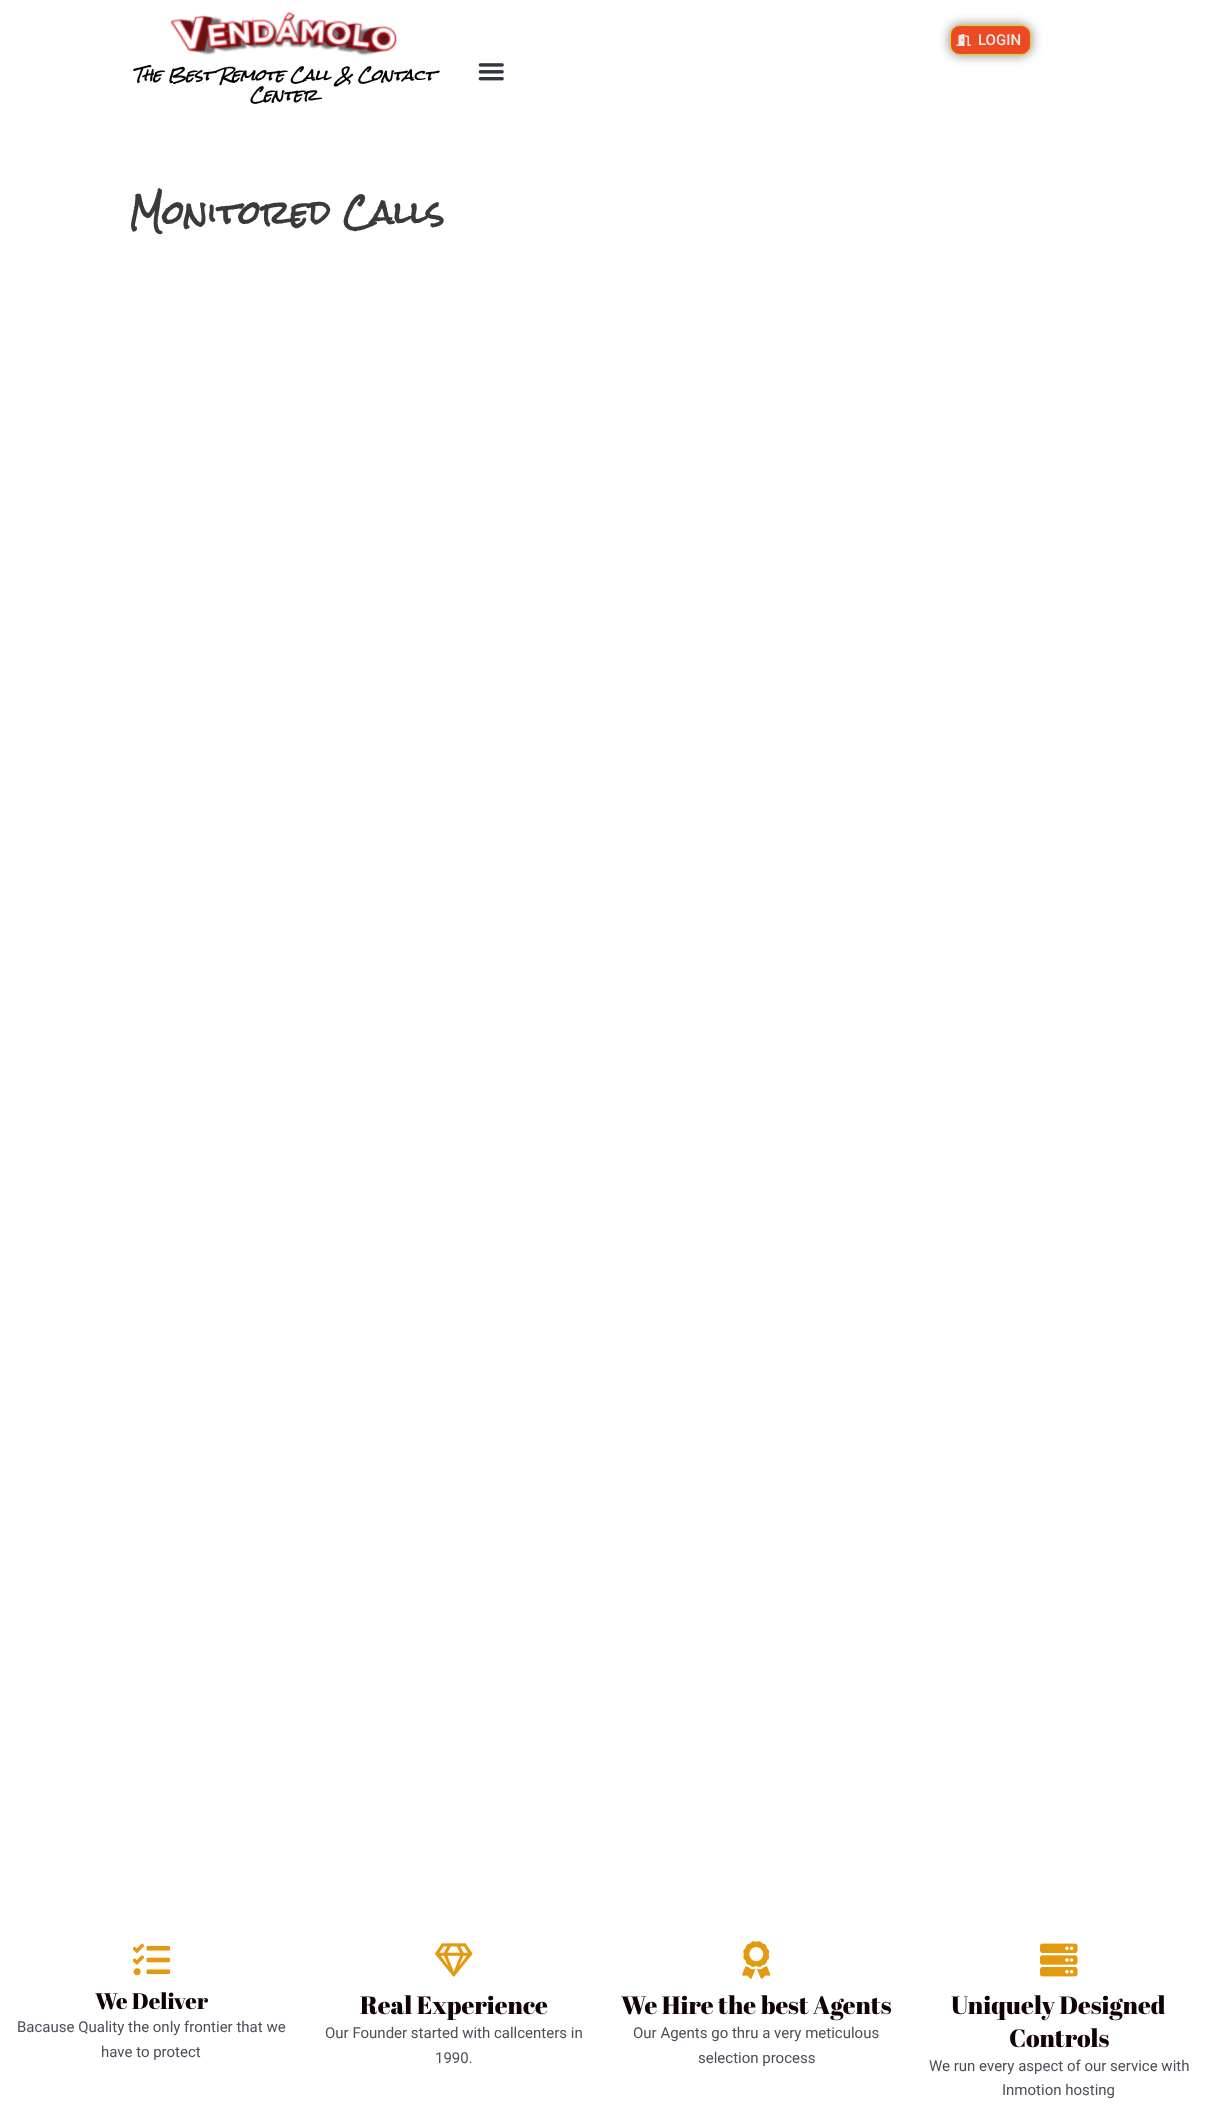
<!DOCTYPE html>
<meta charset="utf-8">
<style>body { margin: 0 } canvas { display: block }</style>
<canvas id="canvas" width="1210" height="2116"></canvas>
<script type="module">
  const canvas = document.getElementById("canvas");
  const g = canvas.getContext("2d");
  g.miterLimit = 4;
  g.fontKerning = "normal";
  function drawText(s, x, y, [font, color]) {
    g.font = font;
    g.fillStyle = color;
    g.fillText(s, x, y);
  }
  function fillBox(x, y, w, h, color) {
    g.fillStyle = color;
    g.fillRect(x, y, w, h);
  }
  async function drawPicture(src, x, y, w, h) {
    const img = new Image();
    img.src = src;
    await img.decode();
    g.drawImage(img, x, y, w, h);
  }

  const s1 = ["500 15px Roboto", "#F0EBEB"];
  const s2 = ["italic bold 15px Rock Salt", "#010406"];
  const s3 = ["bold 31.25px Rock Salt", "#3A3A3A"];
  const s4 = ["22.5px Abril Fatface", "#100204"];
  const s5 = ["15px Roboto", "#4B4F58"];
  const s6 = ["25px Abril Fatface", "#100204"];

  fillBox(0, 0, 1210, 2116, "#FFFFFF");
  g.fillStyle = "rgba(0, 0, 0, 0.5)";
  g.filter = "blur(6px)";
  g.beginPath();
  g.roundRect(950, 25, 81, 30, 10);
  g.fill();
  g.filter = "none";
  g.fillStyle = "#EB4A23";
  g.beginPath();
  g.roundRect(950.5, 25.5, 80, 29, 9.5);
  g.fill();
  g.strokeStyle = "#E4D413";
  g.stroke();
  await drawPicture("pic1.png", 956, 34, 15, 12);
  drawText("LOGIN", 978, 45, s1);
  await drawPicture("pic2.png", 171, 12, 226, 44);
  drawText("The Best Remote Call & Contact", 133, 81, s2);
  drawText("Center", 250, 101, s2);
  await drawPicture("pic3.png", 478, 63, 26, 18);
  drawText("Monitored Calls", 129, 225, s3);
  await drawPicture("pic4.png", 133, 1943, 37, 33);
  drawText("We Deliver", 95, 2009, s4);
  drawText("Bacause Quality the only frontier that we", 17, 2032, s5);
  drawText("have to protect", 101, 2057, s5);
  await drawPicture("pic5.png", 435, 1943, 38, 34);
  drawText("Real Experience", 360, 2014, s6);
  drawText("Our Founder started with callcenters in", 325, 2038, s5);
  drawText("1990.", 435, 2063, s5);
  await drawPicture("pic6.png", 742, 1941, 29, 38);
  drawText("We Hire the best Agents", 621, 2014, s6);
  drawText("Our Agents go thru a very meticulous", 633, 2038, s5);
  drawText("selection process", 698, 2063, s5);
  await drawPicture("pic7.png", 1040, 1943, 38, 34);
  drawText("Uniquely Designed", 951, 2014, s6);
  drawText("Controls", 1009, 2047, s6);
  drawText("We run every aspect of our service with", 929, 2071, s5);
  drawText("Inmotion hosting", 1002, 2095, s5);
</script>
